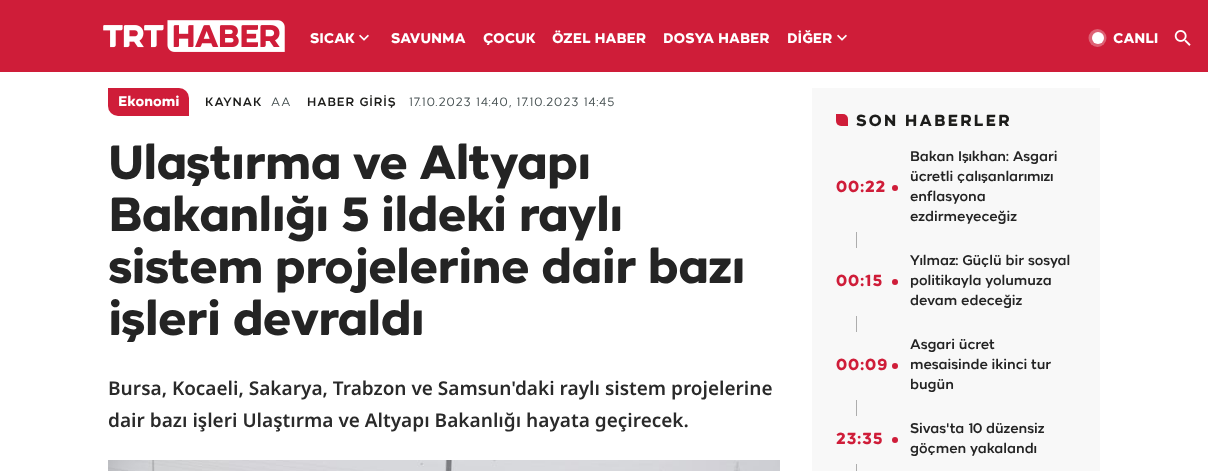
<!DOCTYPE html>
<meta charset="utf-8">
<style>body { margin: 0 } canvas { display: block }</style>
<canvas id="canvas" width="1208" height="471"></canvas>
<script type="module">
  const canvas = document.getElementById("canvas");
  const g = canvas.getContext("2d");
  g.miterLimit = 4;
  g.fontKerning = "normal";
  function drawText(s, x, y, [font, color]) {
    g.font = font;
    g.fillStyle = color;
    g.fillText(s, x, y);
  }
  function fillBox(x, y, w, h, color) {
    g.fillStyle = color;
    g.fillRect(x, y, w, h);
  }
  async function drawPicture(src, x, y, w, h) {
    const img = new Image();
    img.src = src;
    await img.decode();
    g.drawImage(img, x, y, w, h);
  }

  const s1 = ["bold 14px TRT", "#FFFFFF"];
  const s2 = ["500 12px TRT", "#1D1D1B"];
  const s3 = ["12px TRT", "#475152"];
  const s4 = ["bold 48px TRT", "#242424"];
  const s5 = ["600 19px Noto Sans", "#2A2A2A"];
  const s6 = ["bold 16px TRT", "#1D1D1B"];
  const s7 = ["bold 16px TRT", "#CF1D39"];
  const s8 = ["500 14px TRT", "#242424"];

  fillBox(0, 0, 1208, 471, "#FFFFFF");
  fillBox(0, 0, 1208, 72, "#CF1D39");
  await drawPicture("pic1.png", 103, 20, 182, 32);
  drawText("SICAK", 310, 43, s1);
  await drawPicture("pic2.png", 359, 34, 10, 7);
  drawText("SAVUNMA", 391, 43, s1);
  drawText("ÇOCUK", 483, 43, s1);
  drawText("ÖZEL HABER", 552, 43, s1);
  drawText("DOSYA HABER", 663, 43, s1);
  drawText("DİĞER", 787, 43, s1);
  await drawPicture("pic2.png", 837, 34, 10, 7);
  g.fillStyle = "#DD6174";
  g.beginPath();
  g.arc(1097.5, 38, 9, 0, Math.PI * 2);
  g.fill();
  g.fillStyle = "#FFFFFF";
  g.beginPath();
  g.arc(1098, 38, 6, 0, Math.PI * 2);
  g.fill();
  drawText("CANLI", 1113, 43, s1);
  await drawPicture("pic3.png", 1174, 30, 17, 16);
  g.fillStyle = "#CF1D39";
  g.beginPath();
  g.roundRect(108, 88, 81, 28, [0, 10, 0, 10]);
  g.fill();
  drawText("Ekonomi", 118, 106, s1);
  g.letterSpacing = "1px";
  drawText("KAYNAK", 205, 106, s2);
  drawText("AA", 271, 106, s3);
  drawText("HABER GİRİŞ", 307, 106, s2);
  drawText("17.10.2023 14:40", 409, 106, s3);
  drawText(", 17.10.2023 14:45", 509, 106, s3);
  g.letterSpacing = "-1px";
  drawText("Ulaştırma ve Altyapı", 108, 179, s4);
  drawText("Bakanlığı 5 ildeki raylı", 108, 231, s4);
  drawText("sistem projelerine dair bazı", 108, 283, s4);
  drawText("işleri devraldı", 108, 335, s4);
  g.letterSpacing = "0px";
  drawText("Bursa, Kocaeli, Sakarya, Trabzon ve Samsun'daki raylı sistem projelerine", 108, 395, s5);
  drawText("dair bazı işleri Ulaştırma ve Altyapı Bakanlığı hayata geçirecek.", 108, 427, s5);
  await drawPicture("pic4.png", 108, 460, 672, 11);
  fillBox(812, 88, 288, 383, "#F8F8F8");
  g.fillStyle = "#CF1D39";
  g.beginPath();
  g.roundRect(836, 114, 12, 12, [0, 5, 0, 5]);
  g.fill();
  g.letterSpacing = "2px";
  drawText("SON HABERLER", 856, 126, s6);
  g.letterSpacing = "1px";
  drawText("00:22", 836, 192, s7);
  g.beginPath();
  g.arc(895, 188, 3, 0, Math.PI * 2);
  g.fill();
  g.letterSpacing = "0px";
  drawText("Bakan Işıkhan: Asgari", 910, 161, s8);
  drawText("ücretli çalışanlarımızı", 910, 181, s8);
  drawText("enflasyona", 910, 201, s8);
  drawText("ezdirmeyeceğiz", 910, 221, s8);
  fillBox(856, 232, 1, 16, "#ADADAD");
  g.letterSpacing = "1px";
  drawText("00:15", 836, 286, s7);
  g.beginPath();
  g.arc(895, 282, 3, 0, Math.PI * 2);
  g.fill();
  g.letterSpacing = "0px";
  drawText("Yılmaz: Güçlü bir sosyal", 910, 265, s8);
  drawText("politikayla yolumuza", 910, 285, s8);
  drawText("devam edeceğiz", 910, 305, s8);
  fillBox(856, 316, 1, 16, "#ADADAD");
  g.letterSpacing = "1px";
  drawText("00:09", 836, 370, s7);
  g.beginPath();
  g.arc(895, 366, 3, 0, Math.PI * 2);
  g.fill();
  g.letterSpacing = "0px";
  drawText("Asgari ücret", 910, 349, s8);
  drawText("mesaisinde ikinci tur", 910, 369, s8);
  drawText("bugün", 910, 389, s8);
  fillBox(856, 400, 1, 16, "#ADADAD");
  g.letterSpacing = "1px";
  drawText("23:35", 836, 444, s7);
  g.beginPath();
  g.arc(895, 440, 3, 0, Math.PI * 2);
  g.fill();
  g.letterSpacing = "0px";
  drawText("Sivas'ta 10 düzensiz", 910, 433, s8);
  drawText("göçmen yakalandı", 910, 453, s8);
  fillBox(856, 464, 1, 7, "#ADADAD");
</script>
